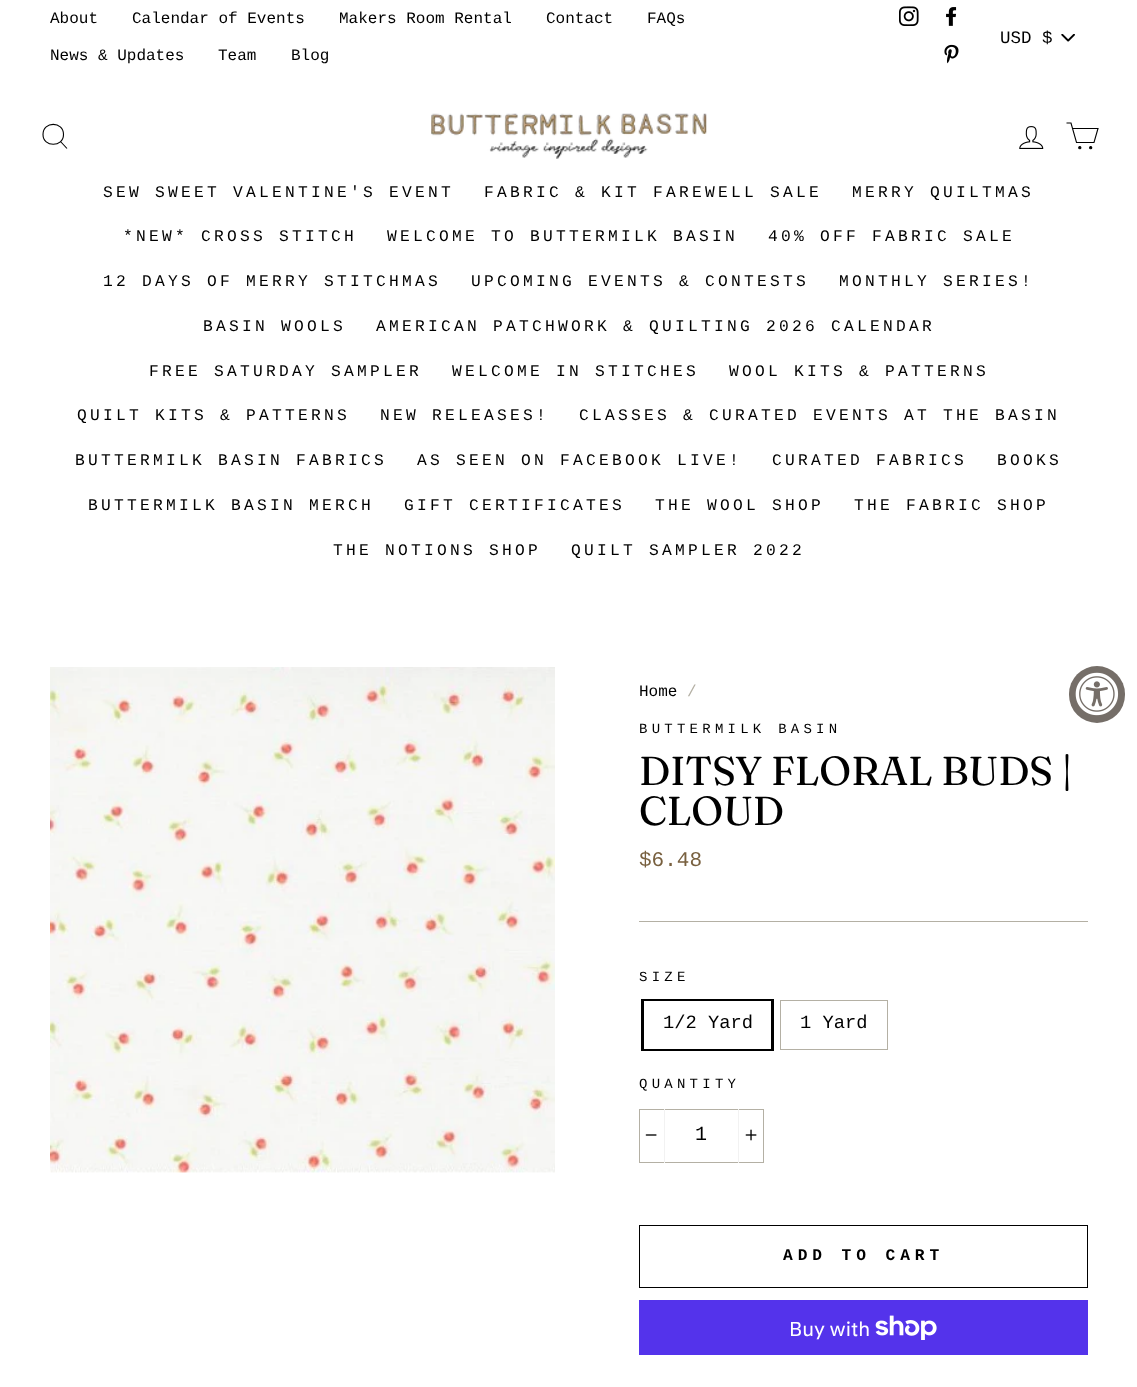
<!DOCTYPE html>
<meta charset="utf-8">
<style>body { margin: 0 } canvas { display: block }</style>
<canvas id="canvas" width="1137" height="1387"></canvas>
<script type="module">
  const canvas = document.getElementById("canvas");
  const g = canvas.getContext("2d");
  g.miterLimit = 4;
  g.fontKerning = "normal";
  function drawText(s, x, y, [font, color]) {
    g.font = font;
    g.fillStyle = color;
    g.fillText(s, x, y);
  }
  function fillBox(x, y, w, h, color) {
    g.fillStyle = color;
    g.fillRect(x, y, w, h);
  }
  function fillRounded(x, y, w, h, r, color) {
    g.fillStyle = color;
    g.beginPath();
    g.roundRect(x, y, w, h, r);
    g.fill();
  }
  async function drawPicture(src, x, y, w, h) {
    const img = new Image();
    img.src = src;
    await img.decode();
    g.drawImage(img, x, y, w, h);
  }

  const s1 = ["16px Liberation Mono", "#000000"];
  const s2 = ["17.5px Liberation Mono", "#000000"];
  const s3 = ["16.25px Liberation Mono", "#000000"];
  const s4 = ["16px Liberation Mono", "#B4B0A4"];
  const s5 = ["14px Liberation Mono", "#000000"];
  const s6 = ["40.4px Fraunces", "#000000"];
  const s7 = ["21px Liberation Mono", "#78603F"];
  const s8 = ["18.75px Liberation Mono", "#000000"];
  const s9 = ["20px Liberation Mono", "#000000"];
  const s10 = ["bold 16.25px Liberation Mono", "#000000"];
  const s11 = ["20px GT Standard", "#FFFFFF"];

  fillBox(0, 0, 1137, 1387, "#FFFFFF");
  drawText("About", 50, 23, s1);
  drawText("Calendar of Events", 132, 23, s1);
  drawText("Makers Room Rental", 339, 23, s1);
  drawText("Contact", 546, 23, s1);
  drawText("FAQs", 647, 23, s1);
  drawText("News & Updates", 50, 60, s1);
  drawText("Team", 218, 60, s1);
  drawText("Blog", 291, 60, s1);
  await drawPicture("pic1.png", 899, 6, 20, 20);
  await drawPicture("pic2.png", 946, 7, 11, 19);
  await drawPicture("pic3.png", 944, 44, 15, 20);
  await drawPicture("pic4.png", 1061, 34, 14, 8);
  drawText("USD $", 1000, 43, s2);
  g.fillStyle = "rgba(0, 0, 0, 0.2)";
  g.filter = "blur(0.5px)";
  g.beginPath();
  g.rect(0, 76, 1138, 523);
  g.fill();
  g.filter = "none";
  fillBox(0, 76, 1137, 523, "#FFFFFF");
  g.beginPath();
  g.moveTo(63.5, 134.5);
  g.bezierCurveTo(63.5, 147.5, 43, 147.5, 43, 134.5);
  g.bezierCurveTo(43, 121, 63.5, 121, 63.5, 134.5);
  g.closePath();
  g.moveTo(67, 148.5);
  g.lineTo(60.5, 141.5);
  g.strokeStyle = "#000000";
  g.lineWidth = 1.1;
  g.stroke();
  await drawPicture("pic5.png", 431, 113, 276, 46);
  await drawPicture("pic6.png", 1019, 126, 25, 23);
  g.beginPath();
  g.moveTo(1072.5, 128.5);
  g.lineTo(1098, 128.5);
  g.lineTo(1094, 142.5);
  g.lineTo(1076.5, 142.5);
  g.lineTo(1071, 123);
  g.lineTo(1066.5, 123);
  g.stroke();
  g.fillStyle = "#000000";
  g.beginPath();
  g.arc(1079.8, 147.7, 1.1, 0, Math.PI * 2);
  g.fill();
  g.stroke();
  g.beginPath();
  g.arc(1090.7, 147.7, 1.1, 0, Math.PI * 2);
  g.fill();
  g.stroke();
  g.letterSpacing = "3.25px";
  drawText("SEW SWEET VALENTINE'S EVENT", 103, 197, s3);
  drawText("FABRIC & KIT FAREWELL SALE", 484, 197, s3);
  drawText("MERRY QUILTMAS", 852, 197, s3);
  drawText("*NEW* CROSS STITCH", 123, 241, s3);
  drawText("WELCOME TO BUTTERMILK BASIN", 387, 241, s3);
  drawText("40% OFF FABRIC SALE", 768, 241, s3);
  drawText("12 DAYS OF MERRY STITCHMAS", 103, 286, s3);
  drawText("UPCOMING EVENTS & CONTESTS", 471, 286, s3);
  drawText("MONTHLY SERIES!", 839, 286, s3);
  drawText("BASIN WOOLS", 203, 331, s3);
  drawText("AMERICAN PATCHWORK & QUILTING 2026 CALENDAR", 376, 331, s3);
  drawText("FREE SATURDAY SAMPLER", 149, 376, s3);
  drawText("WELCOME IN STITCHES", 452, 376, s3);
  drawText("WOOL KITS & PATTERNS", 729, 376, s3);
  drawText("QUILT KITS & PATTERNS", 77, 420, s3);
  drawText("NEW RELEASES!", 380, 420, s3);
  drawText("CLASSES & CURATED EVENTS AT THE BASIN", 579, 420, s3);
  drawText("BUTTERMILK BASIN FABRICS", 75, 465, s3);
  drawText("AS SEEN ON FACEBOOK LIVE!", 417, 465, s3);
  drawText("CURATED FABRICS", 772, 465, s3);
  drawText("BOOKS", 997, 465, s3);
  drawText("BUTTERMILK BASIN MERCH", 88, 510, s3);
  drawText("GIFT CERTIFICATES", 404, 510, s3);
  drawText("THE WOOL SHOP", 655, 510, s3);
  drawText("THE FABRIC SHOP", 854, 510, s3);
  drawText("THE NOTIONS SHOP", 333, 555, s3);
  drawText("QUILT SAMPLER 2022", 571, 555, s3);
  await drawPicture("pic7.png", 50, 667, 505, 506);
  g.letterSpacing = "0px";
  drawText("Home", 639, 696, s1);
  drawText("/", 687, 696, s4);
  g.letterSpacing = "4.25px";
  drawText("BUTTERMILK BASIN", 639, 733, s5);
  g.letterSpacing = "0px";
  drawText("DITSY FLORAL BUDS |", 639, 785, s6);
  drawText("CLOUD", 639, 825, s6);
  drawText("$6.48", 639, 866, s7);
  fillBox(639, 921, 449, 1, "#B4B0A4");
  g.letterSpacing = "4.25px";
  drawText("SIZE", 639, 981, s5);
  g.lineWidth = 3;
  g.strokeRect(642.5, 1000.5, 130, 49);
  fillBox(644, 1001, 127, 48, "#FFFFFF");
  g.letterSpacing = "0px";
  drawText("1/2 Yard", 663, 1028, s8);
  g.strokeStyle = "#B4B0A4";
  g.lineWidth = 1;
  g.strokeRect(780.5, 1000.5, 107, 49);
  drawText("1 Yard", 800, 1028, s8);
  g.letterSpacing = "4.25px";
  drawText("QUANTITY", 639, 1088, s5);
  g.strokeRect(639.5, 1109.5, 124, 53);
  fillBox(664, 1109, 1, 54, "#F2F2F2");
  await drawPicture("pic8.png", 645, 1134, 12, 2);
  g.letterSpacing = "0px";
  drawText("1", 695, 1140, s9);
  fillBox(738, 1109, 1, 54, "#F2F2F2");
  await drawPicture("pic9.png", 745, 1129, 12, 12);
  g.strokeStyle = "#000000";
  g.strokeRect(639.5, 1225.5, 448, 62);
  g.letterSpacing = "4.9px";
  drawText("ADD TO CART", 783, 1260, s10);
  fillBox(639, 1300, 449, 55, "#5433EB");
  g.letterSpacing = "0px";
  drawText("Buy with", 789, 1336, s11);
  await drawPicture("pic10.png", 875, 1315, 62, 25);
  fillRounded(1069, 666, 56, 57, 28, "#756E68");
  await drawPicture("pic11.png", 1075, 672, 44, 44);
</script>
